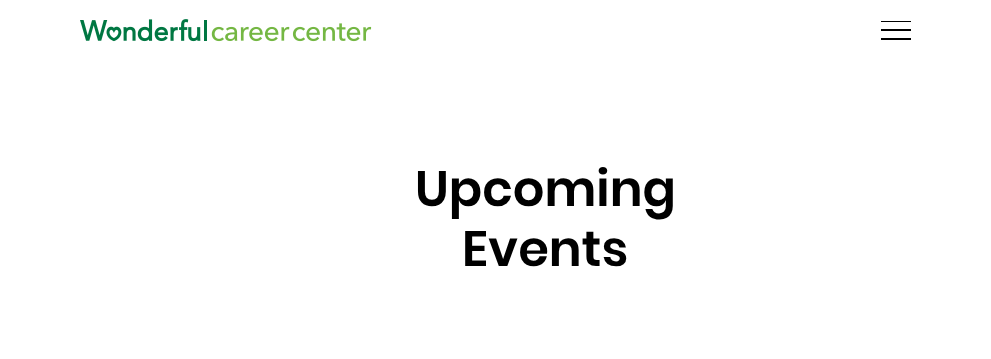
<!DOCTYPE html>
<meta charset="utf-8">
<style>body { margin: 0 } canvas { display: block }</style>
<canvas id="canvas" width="991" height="359"></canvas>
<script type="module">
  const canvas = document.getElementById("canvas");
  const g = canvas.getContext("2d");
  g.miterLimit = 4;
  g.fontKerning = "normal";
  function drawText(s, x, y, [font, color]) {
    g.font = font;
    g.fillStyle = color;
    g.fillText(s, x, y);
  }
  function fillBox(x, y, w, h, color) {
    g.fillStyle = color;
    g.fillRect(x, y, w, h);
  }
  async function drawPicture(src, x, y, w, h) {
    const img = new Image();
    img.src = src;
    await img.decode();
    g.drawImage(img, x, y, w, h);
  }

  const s1 = ["600 49.5px Poppins", "#000000"];

  fillBox(0, 0, 991, 359, "#FFFFFF");
  await drawPicture("pic1.png", 80, 19, 292, 23);
  fillBox(881, 21, 30, 1, "#000000");
  fillBox(881, 29, 30, 2, "#000000");
  fillBox(881, 38, 30, 2, "#000000");
  drawText("Upcoming", 415, 206, s1);
  drawText("Events", 462, 266, s1);
</script>
